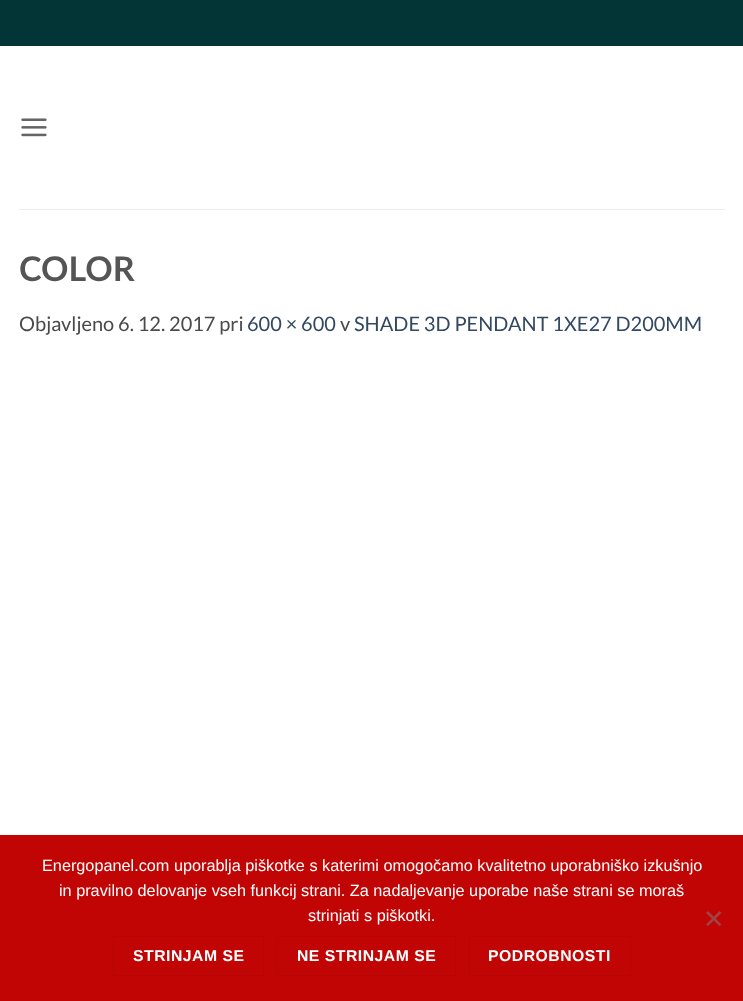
<!DOCTYPE html>
<meta charset="utf-8">
<style>body { margin: 0 } canvas { display: block }</style>
<canvas id="canvas" width="743" height="1001"></canvas>
<script type="module">
  const canvas = document.getElementById("canvas");
  const g = canvas.getContext("2d");
  g.miterLimit = 4;
  g.fontKerning = "normal";
  function drawText(s, x, y, [font, color]) {
    g.font = font;
    g.fillStyle = color;
    g.fillText(s, x, y);
  }
  function fillBox(x, y, w, h, color) {
    g.fillStyle = color;
    g.fillRect(x, y, w, h);
  }
  async function drawPicture(src, x, y, w, h) {
    const img = new Image();
    img.src = src;
    await img.decode();
    g.drawImage(img, x, y, w, h);
  }

  const s1 = ["bold 34px Lato", "#555555"];
  const s2 = ["20px Lato", "#4A4A4A"];
  const s3 = ["20px Lato", "#334862"];
  const s4 = ["16.25px Liberation Sans", "#FFFFFF"];
  const s5 = ["bold 15.75px Liberation Sans", "#FFFFFF"];

  fillBox(0, 0, 743, 1001, "#FFFFFF");
  fillBox(0, 0, 743, 46, "#033537");
  await drawPicture("pic1.png", 21, 118, 26, 19);
  fillBox(19, 209, 706, 1, "#EDEDED");
  drawText("COLOR", 19, 281, s1);
  drawText("Objavljeno 6. 12. 2017 pri", 19, 331, s2);
  drawText("600 × 600", 247, 331, s3);
  drawText("v", 340, 331, s2);
  drawText("SHADE 3D PENDANT 1XE27 D200MM", 354, 331, s3);
  fillBox(0, 835, 743, 166, "#C10505");
  drawText("Energopanel.com uporablja piškotke s katerimi omogočamo kvalitetno uporabniško izkušnjo", 42, 871, s4);
  drawText("in pravilno delovanje vseh funkcij strani. Za nadaljevanje uporabe naše strani se moraš", 59, 896, s4);
  drawText("strinjati s piškotki.", 308, 921, s4);
  g.fillStyle = "#A14343";
  g.beginPath();
  g.moveTo(719.5, 911);
  g.lineTo(721.5, 913);
  g.lineTo(708, 926);
  g.lineTo(706, 924.5);
  g.closePath();
  g.fill();
  g.beginPath();
  g.moveTo(706, 913);
  g.lineTo(708, 911);
  g.lineTo(721.5, 924.5);
  g.lineTo(719.5, 926);
  g.closePath();
  g.fill();
  g.strokeStyle = "#B70505";
  g.strokeRect(113.5, 936.5, 150, 39);
  g.letterSpacing = "0.5px";
  drawText("STRINJAM SE", 133, 961, s5);
  g.strokeRect(276.5, 936.5, 179, 39);
  drawText("NE STRINJAM SE", 297, 961, s5);
  g.strokeRect(469.5, 936.5, 161, 39);
  drawText("PODROBNOSTI", 488, 961, s5);
</script>
